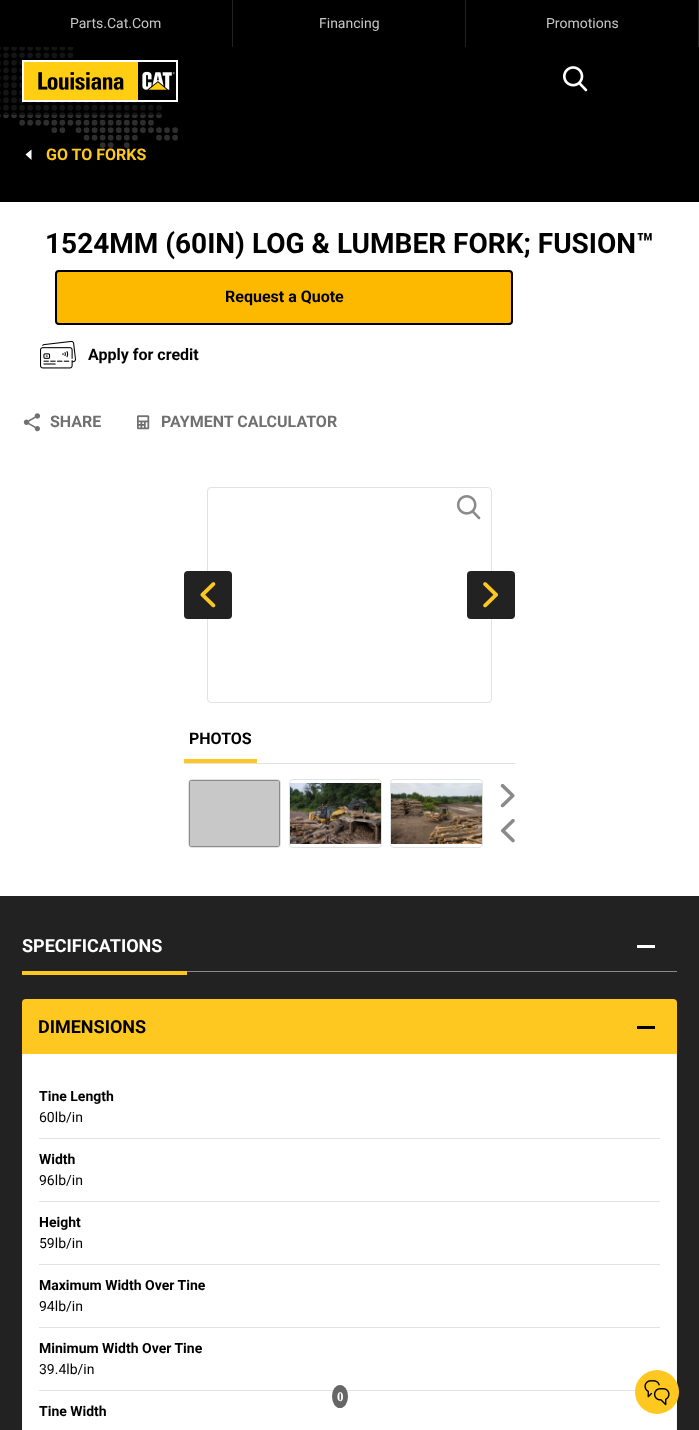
<!DOCTYPE html>
<meta charset="utf-8">
<style>body { margin: 0 } canvas { display: block }</style>
<canvas id="canvas" width="699" height="1430"></canvas>
<script type="module">
  const canvas = document.getElementById("canvas");
  const g = canvas.getContext("2d");
  g.miterLimit = 4;
  g.fontKerning = "normal";
  function drawText(s, x, y, [font, color]) {
    g.font = font;
    g.fillStyle = color;
    g.fillText(s, x, y);
  }
  function fillBox(x, y, w, h, color) {
    g.fillStyle = color;
    g.fillRect(x, y, w, h);
  }
  function fillRounded(x, y, w, h, r, color) {
    g.fillStyle = color;
    g.beginPath();
    g.roundRect(x, y, w, h, r);
    g.fill();
  }
  async function drawPicture(src, x, y, w, h) {
    const img = new Image();
    img.src = src;
    await img.decode();
    g.drawImage(img, x, y, w, h);
  }

  const s1 = ["14px Roboto", "#C6C6C6"];
  const s2 = ["bold 16px Roboto", "#FFC820"];
  const s3 = ["bold 28px Roboto", "#000000"];
  const s4 = ["bold 16px Roboto", "#000000"];
  const s5 = ["bold 16px Roboto", "#707070"];
  const s6 = ["bold 18px Roboto", "#FFFFFF"];
  const s7 = ["bold 18px Roboto", "#000000"];
  const s8 = ["bold 14px Roboto", "#000000"];
  const s9 = ["14px Roboto", "#000000"];
  const s10 = ["bold 13px Liberation Serif", "#FFFFFF"];

  fillBox(0, 0, 699, 1430, "#FFFFFF");
  fillBox(0, 47, 699, 155, "#000000");
  await drawPicture("pic3.png", 0, 47, 178, 101);
  fillBox(0, 47, 162, 68, "rgba(0, 0, 0, 0.55)");
  fillBox(0, 0, 698, 47, "#000000");
  fillBox(232, 0, 1, 47, "#222222");
  drawText("Parts.Cat.Com", 70, 28, s1);
  fillBox(465, 0, 1, 47, "#222222");
  drawText("Financing", 319, 28, s1);
  fillBox(698, 0, 1, 47, "#222222");
  drawText("Promotions", 546, 28, s1);
  await drawPicture("pic1.png", 22, 60, 156, 42);
  await drawPicture("pic2.png", 563, 66, 25, 26);
  g.fillStyle = "#FFFFFF";
  g.beginPath();
  g.moveTo(31.5, 149.5);
  g.lineTo(25.5, 154.5);
  g.lineTo(31.5, 160);
  g.closePath();
  g.fill();
  drawText("GO TO FORKS", 46, 160, s2);
  drawText("1524MM (60IN) LOG & LUMBER FORK; FUSION™", 45, 253, s3);
  g.fillStyle = "#FCB900";
  g.beginPath();
  g.roundRect(56, 271, 456, 53, 3);
  g.fill();
  g.strokeStyle = "#000000";
  g.lineWidth = 2;
  g.stroke();
  drawText("Request a Quote", 225, 302, s4);
  await drawPicture("pic4.png", 40, 340, 36, 29);
  drawText("Apply for credit", 88, 360, s4);
  await drawPicture("pic5.png", 23, 413, 17, 19);
  drawText("SHARE", 50, 427, s5);
  await drawPicture("pic6.png", 137, 415, 13, 15);
  drawText("PAYMENT CALCULATOR", 161, 427, s5);
  g.beginPath();
  g.roundRect(207.5, 487.5, 284, 215, 3.5);
  g.strokeStyle = "#E2E2E2";
  g.lineWidth = 1;
  g.stroke();
  await drawPicture("pic7.png", 456, 495, 25, 25);
  fillRounded(184, 571, 48, 48, 4, "#222222");
  await drawPicture("pic8.png", 200, 582, 16, 26);
  fillRounded(467, 571, 48, 48, 4, "#222222");
  await drawPicture("pic9.png", 483, 582, 15, 26);
  fillBox(184, 763, 331, 1, "#E2E2E2");
  drawText("PHOTOS", 189, 744, s4);
  fillBox(184, 759, 73, 4, "#FFC820");
  g.beginPath();
  g.roundRect(188.5, 779.5, 92, 68, 3.5);
  g.stroke();
  fillRounded(189, 780, 91, 67, 3, "rgba(34, 34, 34, 0.25)");
  g.fillStyle = "#8A8A8A";
  g.beginPath();
  g.moveTo(192, 780);
  g.bezierCurveTo(190, 780, 189, 781, 189, 783);
  g.lineTo(189, 844);
  g.bezierCurveTo(189, 846, 190, 847, 192, 847);
  g.lineTo(277, 847);
  g.bezierCurveTo(279, 847, 280, 846, 280, 844);
  g.lineTo(280, 783);
  g.bezierCurveTo(280, 781, 279, 780, 277, 780);
  g.closePath();
  g.moveTo(190, 781);
  g.lineTo(190, 846);
  g.lineTo(279, 846);
  g.lineTo(279, 781);
  g.closePath();
  g.fill("evenodd");
  g.beginPath();
  g.roundRect(289.5, 779.5, 92, 68, 3.5);
  g.stroke();
  await drawPicture("pic10.png", 290, 783, 91, 61);
  g.beginPath();
  g.roundRect(390.5, 779.5, 92, 68, 3.5);
  g.stroke();
  await drawPicture("pic11.png", 391, 783, 91, 61);
  await drawPicture("pic12.png", 500, 784, 15, 24);
  await drawPicture("pic13.png", 501, 819, 14, 24);
  fillBox(0, 896, 699, 534, "#222222");
  fillBox(187, 971, 490, 1, "#8A8A8A");
  drawText("SPECIFICATIONS", 22, 952, s6);
  fillBox(637, 945, 18, 3, "#FFFFFF");
  fillBox(22, 971, 165, 4, "#FFC820");
  g.beginPath();
  g.roundRect(22, 999, 655, 55, [4, 4, 0, 0]);
  g.fill();
  drawText("DIMENSIONS", 38, 1033, s7);
  fillBox(637, 1026, 18, 3, "#000000");
  fillBox(23, 1054, 653, 376, "#FFFFFF");
  g.fillStyle = "#F6F6F6";
  g.beginPath();
  g.moveTo(22, 1054);
  g.lineTo(677, 1054);
  g.lineTo(677, 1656);
  g.bezierCurveTo(677, 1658, 675, 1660, 673, 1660);
  g.lineTo(26, 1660);
  g.bezierCurveTo(24, 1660, 22, 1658, 22, 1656);
  g.closePath();
  g.moveTo(23, 1054);
  g.lineTo(676, 1054);
  g.lineTo(676, 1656);
  g.bezierCurveTo(676, 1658, 675, 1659, 673, 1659);
  g.lineTo(26, 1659);
  g.bezierCurveTo(24, 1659, 23, 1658, 23, 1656);
  g.closePath();
  g.fill("evenodd");
  fillBox(39, 1138, 621, 1, "#E2E2E2");
  drawText("Tine Length", 39, 1101, s8);
  drawText("60lb/in", 39, 1122, s9);
  fillBox(39, 1201, 621, 1, "#E2E2E2");
  drawText("Width", 39, 1164, s8);
  drawText("96lb/in", 39, 1185, s9);
  fillBox(39, 1264, 621, 1, "#E2E2E2");
  drawText("Height", 39, 1227, s8);
  drawText("59lb/in", 39, 1248, s9);
  fillBox(39, 1327, 621, 1, "#E2E2E2");
  drawText("Maximum Width Over Tine", 39, 1290, s8);
  drawText("94lb/in", 39, 1311, s9);
  fillBox(39, 1390, 597, 1, "#E2E2E2");
  drawText("Minimum Width Over Tine", 39, 1353, s8);
  drawText("39.4lb/in", 39, 1374, s9);
  drawText("Tine Width", 39, 1416, s8);
  g.fillStyle = "#666666";
  g.beginPath();
  g.ellipse(340, 1396.5, 8, 11.5, 0, 0, Math.PI * 2);
  g.fill();
  drawText("0", 337, 1401, s10);
  g.fillStyle = "#FFC820";
  g.beginPath();
  g.arc(657, 1392, 22, 0, Math.PI * 2);
  g.fill();
  await drawPicture("pic14.png", 644, 1380, 26, 26);
</script>
